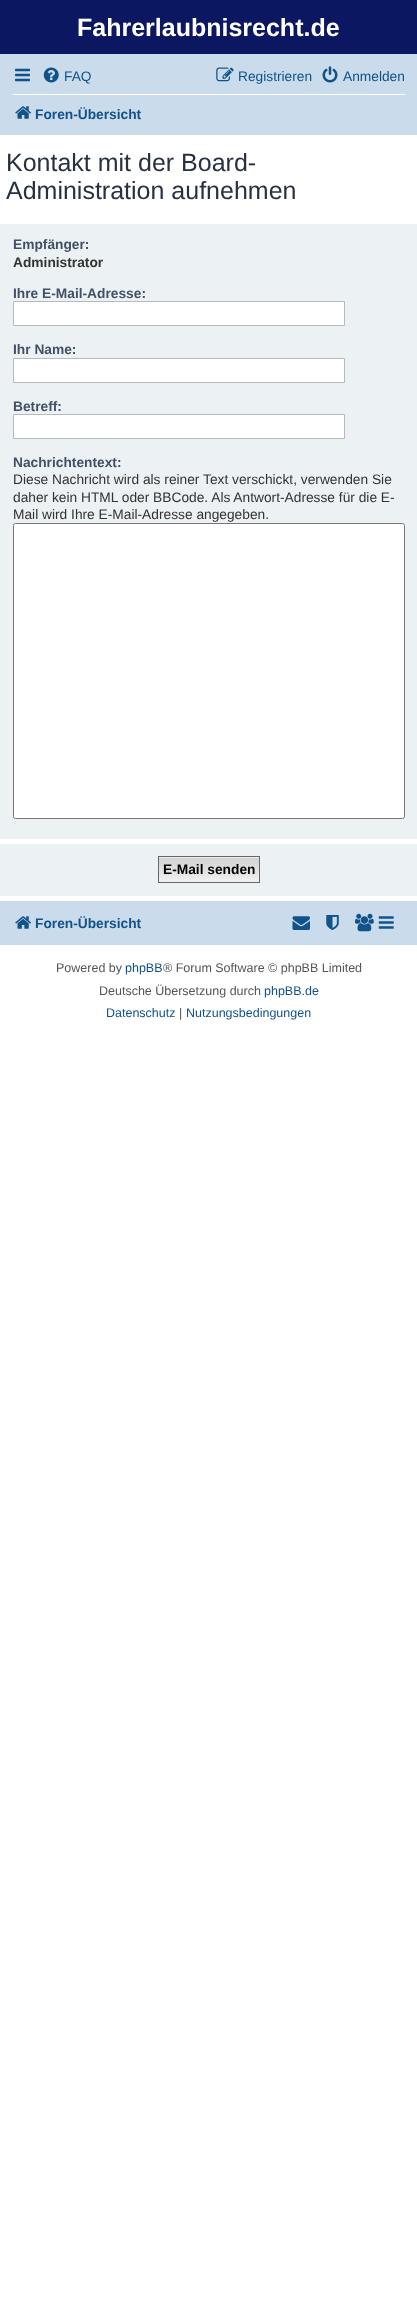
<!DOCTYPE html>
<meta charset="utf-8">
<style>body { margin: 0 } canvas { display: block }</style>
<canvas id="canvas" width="417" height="2307"></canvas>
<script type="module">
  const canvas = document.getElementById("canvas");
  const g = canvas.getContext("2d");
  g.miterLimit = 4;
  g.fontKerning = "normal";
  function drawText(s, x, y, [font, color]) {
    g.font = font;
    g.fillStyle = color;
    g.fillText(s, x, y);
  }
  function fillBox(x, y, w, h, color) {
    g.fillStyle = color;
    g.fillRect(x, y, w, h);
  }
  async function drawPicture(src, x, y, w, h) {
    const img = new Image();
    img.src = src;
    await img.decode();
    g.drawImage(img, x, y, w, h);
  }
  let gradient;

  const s1 = ["bold 25px Liberation Sans", "#FFFFFF"];
  const s2 = ["13.75px Liberation Sans", "#105289"];
  const s3 = ["bold 13.75px Liberation Sans", "#105289"];
  const s4 = ["25px Liberation Sans", "#28313F"];
  const s5 = ["bold 13.75px Liberation Sans", "#425067"];
  const s6 = ["bold 13.75px Liberation Sans", "#333333"];
  const s7 = ["13.75px Liberation Sans", "#333333"];
  const s8 = ["bold 13.75px Liberation Sans", "#000000"];
  const s9 = ["12.5px Liberation Sans", "#555555"];
  const s10 = ["12.5px Liberation Sans", "#105289"];

  fillBox(0, 0, 417, 2307, "#FFFFFF");
  fillBox(0, 0, 417, 54, "#0B1761");
  drawText("Fahrerlaubnisrecht.de", 77, 36, s1);
  fillBox(0, 54, 417, 81, "#CADCEB");
  await drawPicture("pic1.png", 15, 68, 15, 14);
  await drawPicture("pic2.png", 43, 67, 16, 16);
  drawText("FAQ", 64, 81, s2);
  await drawPicture("pic3.png", 216, 67, 18, 15);
  drawText("Registrieren", 238, 81, s2);
  await drawPicture("pic4.png", 322, 66, 16, 17);
  drawText("Anmelden", 343, 81, s2);
  fillBox(13, 94, 392, 1, "#FFFFFF");
  await drawPicture("pic5.png", 15, 106, 16, 13);
  drawText("Foren-Übersicht", 35, 119, s3);
  drawText("Kontakt mit der Board-", 6, 171, s4);
  drawText("Administration aufnehmen", 6, 199, s4);
  fillBox(0, 224, 417, 615, "#ECF1F3");
  drawText("Empfänger:", 13, 249, s5);
  drawText("Administrator", 13, 267, s6);
  drawText("Ihre E-Mail-Adresse:", 13, 298, s5);
  g.fillStyle = "#FFFFFF";
  g.beginPath();
  g.rect(13.5, 301.5, 331, 24);
  g.fill();
  g.strokeStyle = "#B4BAC0";
  g.stroke();
  drawText("Ihr Name:", 13, 354, s5);
  g.fillStyle = "#FFFFFF";
  g.beginPath();
  g.rect(13.5, 358.5, 331, 24);
  g.fill();
  g.stroke();
  drawText("Betreff:", 13, 411, s5);
  g.fillStyle = "#FFFFFF";
  g.beginPath();
  g.rect(13.5, 414.5, 331, 24);
  g.fill();
  g.stroke();
  drawText("Nachrichtentext:", 13, 467, s5);
  drawText("Diese Nachricht wird als reiner Text verschickt, verwenden Sie", 13, 484, s7);
  drawText("daher kein HTML oder BBCode. Als Antwort-Adresse für die E-", 13, 502, s7);
  drawText("Mail wird Ihre E-Mail-Adresse angegeben.", 13, 519, s7);
  g.fillStyle = "#FFFFFF";
  g.beginPath();
  g.roundRect(13.5, 523.5, 391, 295, 2);
  g.fill();
  g.strokeStyle = "#767676";
  g.stroke();
  fillBox(0, 844, 417, 52, "#ECF1F3");
  fillBox(159, 857, 100, 25, "#EFEFEF");
  gradient = g.createLinearGradient(209, 858, 209, 881);
  gradient.addColorStop(0, "#D2D2D2");
  gradient.addColorStop(1, "#EFEFEF");
  g.fillStyle = gradient;
  g.fillRect(159, 858, 100, 21);
  g.strokeStyle = "#666666";
  g.strokeRect(158.5, 856.5, 101, 26);
  drawText("E-Mail senden", 163, 874, s8);
  fillBox(0, 901, 417, 44, "#CADCEB");
  await drawPicture("pic5.png", 15, 916, 16, 13);
  drawText("Foren-Übersicht", 35, 928, s3);
  await drawPicture("pic6.png", 292, 916, 18, 14);
  await drawPicture("pic7.png", 326, 915, 13, 15);
  await drawPicture("pic8.png", 355, 913, 19, 19);
  await drawPicture("pic9.png", 378, 916, 16, 13);
  drawText("Powered by", 56, 972, s9);
  drawText("phpBB", 125, 972, s10);
  drawText("® Forum Software © phpBB Limited", 163, 972, s9);
  drawText("Deutsche Übersetzung durch", 99, 995, s9);
  drawText("phpBB.de", 264, 995, s10);
  drawText("Datenschutz", 106, 1017, s10);
  drawText("|", 179, 1017, s9);
  drawText("Nutzungsbedingungen", 186, 1017, s10);
</script>
